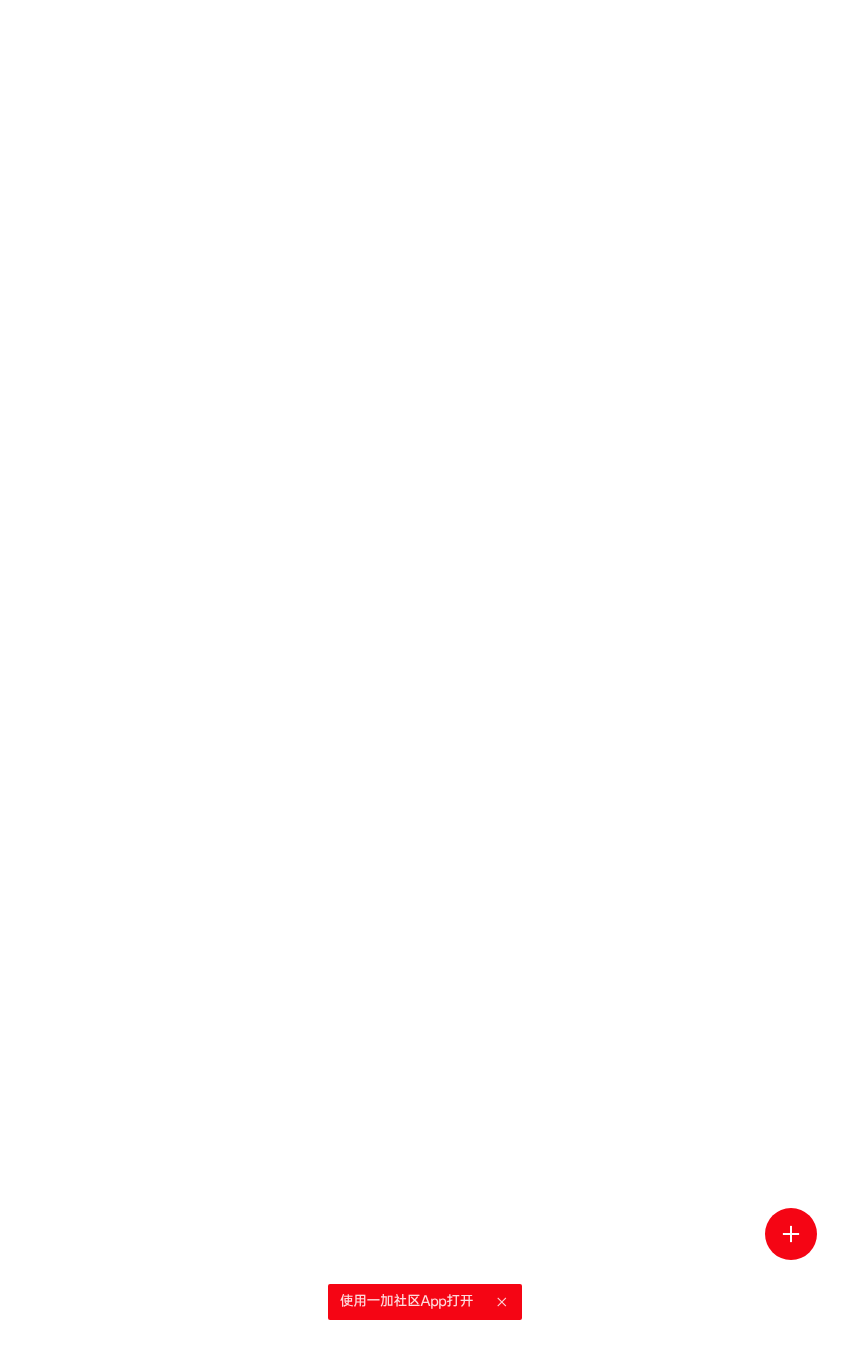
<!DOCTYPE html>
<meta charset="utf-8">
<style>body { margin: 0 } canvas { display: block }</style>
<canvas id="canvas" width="849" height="1348"></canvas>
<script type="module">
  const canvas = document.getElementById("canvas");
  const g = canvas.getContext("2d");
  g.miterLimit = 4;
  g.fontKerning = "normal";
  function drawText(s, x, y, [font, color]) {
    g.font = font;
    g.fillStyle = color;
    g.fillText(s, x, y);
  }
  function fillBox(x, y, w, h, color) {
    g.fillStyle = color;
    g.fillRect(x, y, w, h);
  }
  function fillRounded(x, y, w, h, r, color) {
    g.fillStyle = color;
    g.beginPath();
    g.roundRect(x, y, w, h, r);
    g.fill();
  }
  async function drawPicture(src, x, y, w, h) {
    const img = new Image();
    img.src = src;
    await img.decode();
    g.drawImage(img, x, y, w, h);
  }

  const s1 = ["14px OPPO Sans", "#FEDADC"];

  fillBox(0, 0, 849, 1348, "#FFFFFF");
  g.fillStyle = "#F50514";
  g.beginPath();
  g.arc(791, 1234, 26, 0, Math.PI * 2);
  g.fill();
  await drawPicture("pic1.png", 782, 1225, 18, 18);
  fillRounded(328, 1284, 194, 36, 2, "#F50514");
  drawText("使用一加社区App打开", 340, 1306, s1);
  await drawPicture("pic2.png", 497, 1297, 10, 10);
</script>
